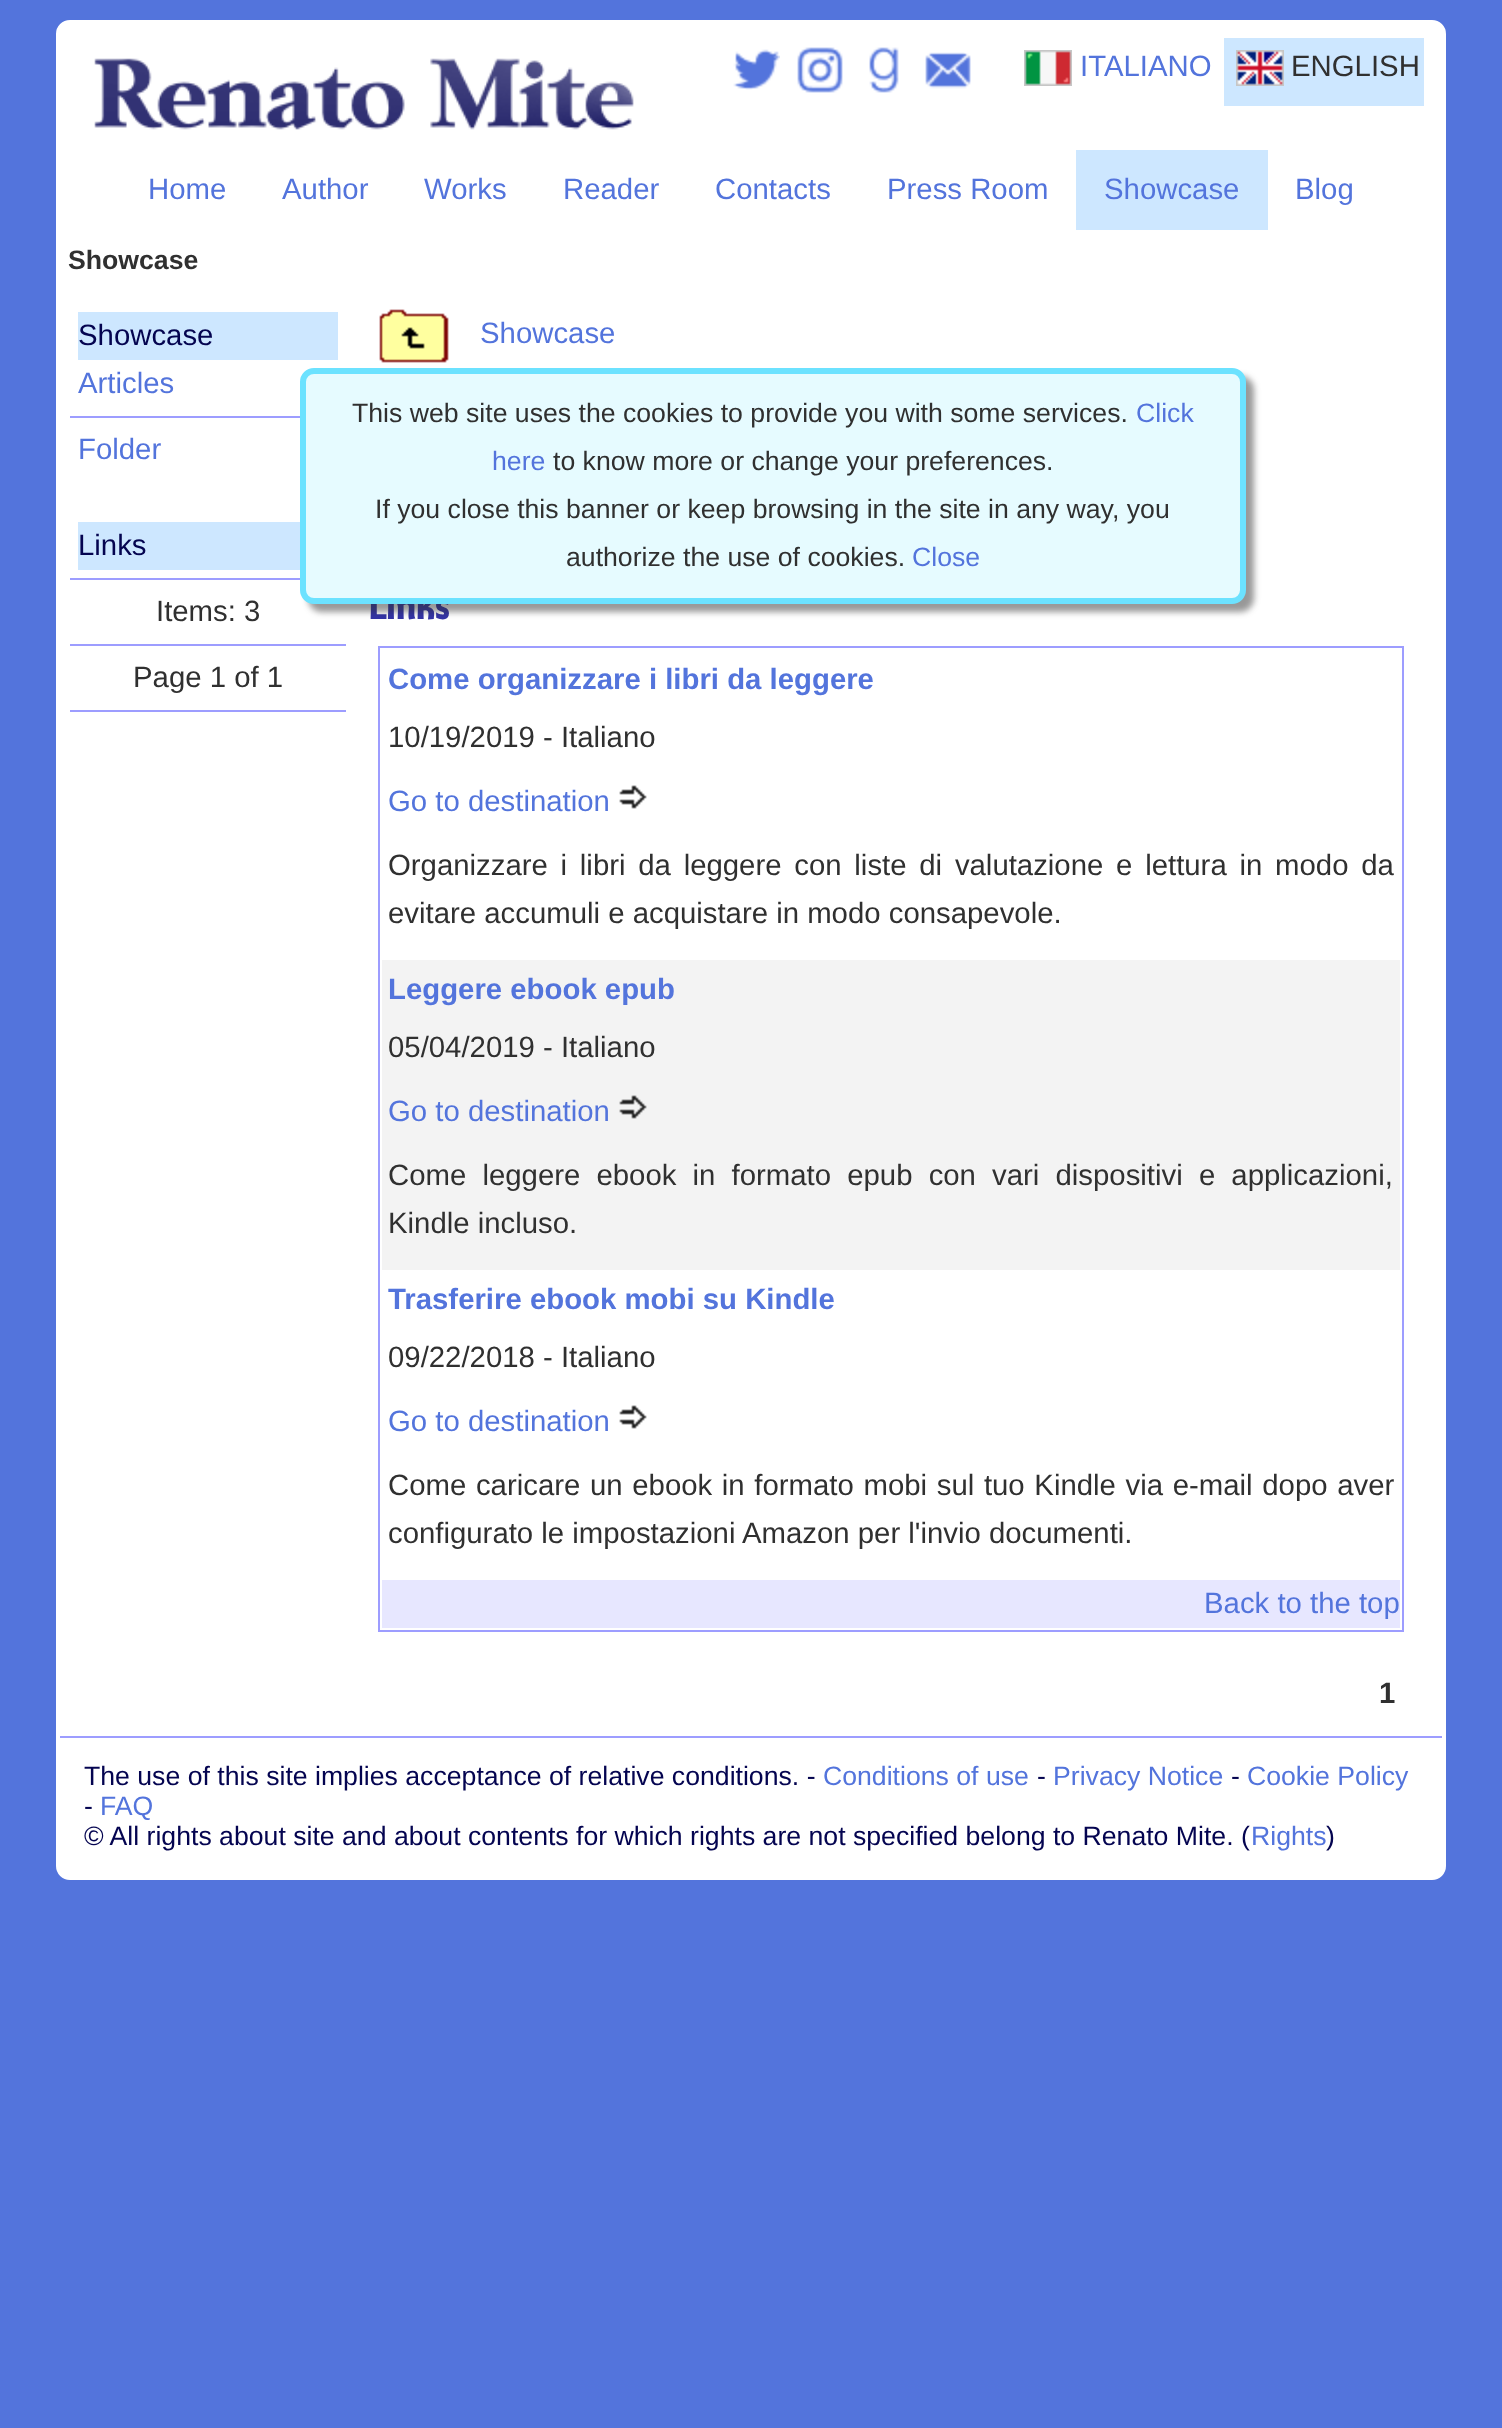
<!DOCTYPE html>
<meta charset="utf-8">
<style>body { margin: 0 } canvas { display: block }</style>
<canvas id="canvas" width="1502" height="2428"></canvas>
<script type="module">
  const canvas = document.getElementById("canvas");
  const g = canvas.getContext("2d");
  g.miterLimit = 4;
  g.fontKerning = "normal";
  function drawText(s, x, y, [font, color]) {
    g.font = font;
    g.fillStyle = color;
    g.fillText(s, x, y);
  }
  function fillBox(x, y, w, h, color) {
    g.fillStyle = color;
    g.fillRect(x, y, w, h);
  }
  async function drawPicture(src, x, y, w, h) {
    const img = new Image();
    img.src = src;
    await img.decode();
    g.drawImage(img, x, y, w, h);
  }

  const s1 = ["29.35px Liberation Sans", "#5374DC"];
  const s2 = ["29.35px Liberation Sans", "#303030"];
  const s3 = ["bold 26.65px Liberation Sans", "#303030"];
  const s4 = ["29.35px Liberation Sans", "#040450"];
  const s5 = ["bold 37px Cantora One", "#3333A6"];
  const s6 = ["bold 29.35px Liberation Sans", "#5374DC"];
  const s7 = ["bold 29.35px Liberation Sans", "#303030"];
  const s8 = ["26.65px Liberation Sans", "#040450"];
  const s9 = ["26.65px Liberation Sans", "#5374DC"];
  const s10 = ["26.65px Liberation Sans", "#303030"];

  fillBox(0, 0, 1502, 2428, "#5374DC");
  g.fillStyle = "#FFFFFF";
  g.beginPath();
  g.roundRect(58, 22, 1386, 1856, 12);
  g.fill();
  g.strokeStyle = "#FFFFFF";
  g.lineWidth = 4;
  g.stroke();
  await drawPicture("pic1.png", 94, 58, 540, 72);
  await drawPicture("pic2.png", 733, 49, 47, 41);
  await drawPicture("pic3.png", 797, 47, 46, 46);
  await drawPicture("pic4.png", 869, 47, 30, 46);
  await drawPicture("pic5.png", 925, 52, 46, 37);
  await drawPicture("pic6.png", 1024, 50, 48, 36);
  drawText("ITALIANO", 1080, 76, s1);
  fillBox(1224, 38, 200, 68, "#CDE7FF");
  await drawPicture("pic7.png", 1236, 50, 48, 36);
  drawText("ENGLISH", 1291, 76, s2);
  drawText("Home", 148, 199, s1);
  drawText("Author", 282, 199, s1);
  drawText("Works", 424, 199, s1);
  drawText("Reader", 563, 199, s1);
  drawText("Contacts", 715, 199, s1);
  drawText("Press Room", 887, 199, s1);
  fillBox(1076, 150, 192, 80, "#CDE7FF");
  drawText("Showcase", 1104, 199, s1);
  drawText("Blog", 1295, 199, s1);
  drawText("Showcase", 68, 269, s3);
  fillBox(70, 416, 230, 2, "#9D9DFF");
  fillBox(78, 312, 260, 48, "#CDE7FF");
  drawText("Showcase", 78, 345, s4);
  drawText("Articles", 78, 393, s1);
  fillBox(70, 578, 230, 2, "#9D9DFF");
  drawText("Folder", 78, 459, s1);
  fillBox(78, 522, 222, 48, "#CDE7FF");
  drawText("Links", 78, 555, s4);
  fillBox(70, 644, 276, 2, "#9D9DFF");
  drawText("Items: 3", 156, 621, s2);
  fillBox(70, 710, 276, 2, "#9D9DFF");
  drawText("Page 1 of 1", 133, 687, s2);
  await drawPicture("pic8.png", 379, 309, 70, 54);
  drawText("Showcase", 480, 343, s1);
  drawText("Links", 368, 619, s5);
  g.strokeStyle = "#9D9DFF";
  g.lineWidth = 2;
  g.strokeRect(379, 647, 1024, 984);
  drawText("Come organizzare i libri da leggere", 388, 689, s6);
  drawText("10/19/2019 - Italiano", 388, 747, s2);
  drawText("Go to destination", 388, 811, s1);
  await drawPicture("pic9.png", 619, 785, 28, 24);
  g.wordSpacing = "4.6px";
  drawText("Organizzare i libri da leggere con liste di valutazione e lettura in modo da", 388, 875, s2);
  g.wordSpacing = "0px";
  drawText("evitare accumuli e acquistare in modo consapevole.", 388, 923, s2);
  fillBox(382, 960, 1018, 310, "#F3F3F3");
  drawText("Leggere ebook epub", 388, 999, s6);
  drawText("05/04/2019 - Italiano", 388, 1057, s2);
  drawText("Go to destination", 388, 1121, s1);
  await drawPicture("pic10.png", 619, 1095, 28, 24);
  g.wordSpacing = "8px";
  drawText("Come leggere ebook in formato epub con vari dispositivi e applicazioni,", 388, 1185, s2);
  g.wordSpacing = "0px";
  drawText("Kindle incluso.", 388, 1233, s2);
  drawText("Trasferire ebook mobi su Kindle", 388, 1309, s6);
  drawText("09/22/2018 - Italiano", 388, 1367, s2);
  drawText("Go to destination", 388, 1431, s1);
  await drawPicture("pic9.png", 619, 1405, 28, 24);
  g.wordSpacing = "1.5px";
  drawText("Come caricare un ebook in formato mobi sul tuo Kindle via e-mail dopo aver", 388, 1495, s2);
  g.wordSpacing = "0px";
  drawText("configurato le impostazioni Amazon per l'invio documenti.", 388, 1543, s2);
  fillBox(382, 1580, 1018, 48, "#E7E7FF");
  drawText("Back to the top", 1204, 1613, s1);
  drawText("1", 1379, 1703, s7);
  fillBox(60, 1736, 1382, 2, "#9D9DFF");
  drawText("The use of this site implies acceptance of relative conditions. -", 84, 1785, s8);
  drawText("Conditions of use", 823, 1785, s9);
  drawText("-", 1037, 1785, s8);
  drawText("Privacy Notice", 1053, 1785, s9);
  drawText("-", 1231, 1785, s8);
  drawText("Cookie Policy", 1247, 1785, s9);
  drawText("-", 84, 1815, s8);
  drawText("FAQ", 100, 1815, s9);
  drawText("© All rights about site and about contents for which rights are not specified belong to Renato Mite. (", 84, 1845, s8);
  drawText("Rights", 1251, 1845, s9);
  drawText(")", 1326, 1845, s8);
  g.fillStyle = "rgba(50, 50, 50, 0.5)";
  g.filter = "blur(3px)";
  g.beginPath();
  g.roundRect(308, 376, 946, 236, 14);
  g.fill();
  g.filter = "none";
  g.fillStyle = "#E6FBFF";
  g.beginPath();
  g.roundRect(303, 371, 940, 230, 11);
  g.fill();
  g.strokeStyle = "#6CE2FF";
  g.lineWidth = 6;
  g.stroke();
  drawText("This web site uses the cookies to provide you with some services.", 352, 422, s10);
  drawText("Click", 1136, 422, s9);
  drawText("here", 492, 470, s9);
  drawText("to know more or change your preferences.", 553, 470, s10);
  drawText("If you close this banner or keep browsing in the site in any way, you", 375, 518, s10);
  drawText("authorize the use of cookies.", 566, 566, s10);
  drawText("Close", 912, 566, s9);
</script>
